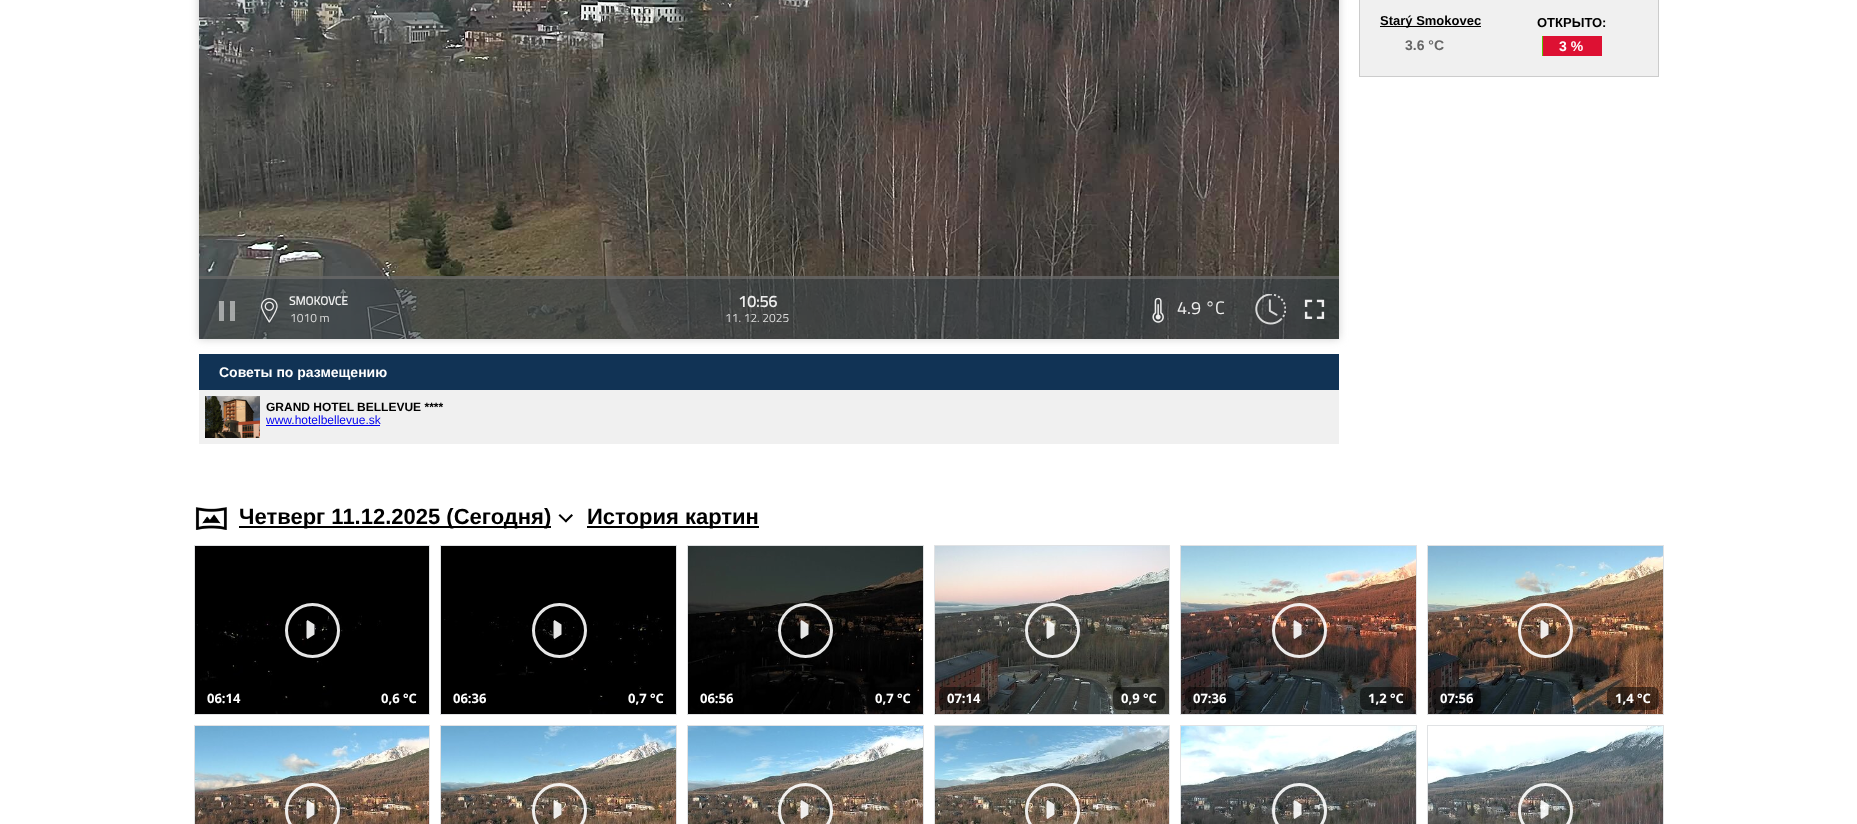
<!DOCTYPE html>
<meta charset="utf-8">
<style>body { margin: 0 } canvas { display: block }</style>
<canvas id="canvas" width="1857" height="824"></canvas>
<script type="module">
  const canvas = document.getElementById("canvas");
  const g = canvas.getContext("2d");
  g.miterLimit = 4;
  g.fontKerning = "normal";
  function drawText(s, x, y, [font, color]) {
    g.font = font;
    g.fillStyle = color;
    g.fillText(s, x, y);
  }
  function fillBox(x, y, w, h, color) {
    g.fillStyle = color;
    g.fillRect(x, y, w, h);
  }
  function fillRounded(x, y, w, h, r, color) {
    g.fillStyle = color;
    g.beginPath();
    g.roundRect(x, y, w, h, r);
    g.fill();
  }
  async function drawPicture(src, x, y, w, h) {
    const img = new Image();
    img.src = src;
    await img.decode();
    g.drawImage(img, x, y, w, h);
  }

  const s1 = ["bold 13px Liberation Sans", "#000000"];
  const s2 = ["bold 14px Liberation Sans", "#666666"];
  const s3 = ["bold 14px Liberation Sans", "#FFFFFF"];
  const s4 = ["bold 12px Titillium Web", "#EEEEEE"];
  const s5 = ["12px Titillium Web", "#DDDDDD"];
  const s6 = ["bold 16px Titillium Web", "#EEEEEE"];
  const s7 = ["18px Titillium Web", "#EEEEEE"];
  const s8 = ["bold 12px Liberation Sans", "#000000"];
  const s9 = ["12px Liberation Sans", "#0000EE"];
  const s10 = ["bold 22px Liberation Sans", "#000000"];
  const s11 = ["bold 13px Open Sans", "#FFFFFF"];

  fillBox(0, 0, 1857, 824, "#FFFFFF");
  g.fillStyle = "#CCCCCC";
  g.filter = "blur(0.5px)";
  g.beginPath();
  g.rect(1359, -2, 300, 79);
  g.fill();
  g.filter = "none";
  fillBox(1360, 0, 298, 76, "#F0F0F0");
  fillBox(1359, 76, 300, 1, "#CCCCCC");
  fillBox(1658, 0, 1, 76, "#CCCCCC");
  fillBox(1359, 0, 1, 76, "#CCCCCC");
  fillBox(1380, 26, 101, 1, "#000000");
  drawText("Starý Smokovec", 1380, 25, s1);
  drawText("3.6 °C", 1405, 50, s2);
  drawText("ОТКРЫТО:", 1537, 27, s1);
  fillBox(1543, 36, 59, 20, "#DD1133");
  fillBox(1542, 36, 1, 20, "#5AC805");
  drawText("3 %", 1559, 51, s3);
  g.fillStyle = "#CCCCCC";
  g.filter = "blur(4px)";
  g.beginPath();
  g.rect(199, -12, 1140, 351);
  g.fill();
  g.filter = "none";
  await drawPicture("pic1.png", 199, 0, 1140, 339);
  fillBox(199, 279, 1140, 60, "rgba(58, 66, 70, 0.65)");
  fillBox(199, 276, 1140, 3, "rgba(102, 102, 102, 0.8)");
  fillBox(230, 301, 5, 20, "rgba(255, 255, 255, 0.5)");
  fillBox(219, 301, 5, 20, "rgba(255, 255, 255, 0.5)");
  await drawPicture("pic2.png", 261, 298, 17, 25);
  drawText("SMOKOVCE", 289, 305, s4);
  drawText("1010 m", 290, 322, s5);
  drawText("10:56", 738, 307, s6);
  drawText("11. 12. 2025", 725, 322, s5);
  await drawPicture("pic3.png", 1152, 298, 12, 25);
  drawText("4.9 °C", 1177, 314, s7);
  await drawPicture("pic4.png", 1255, 294, 31, 31);
  await drawPicture("pic5.png", 1304, 299, 21, 20);
  g.fillStyle = "#CCCCCC";
  g.filter = "blur(0.5px)";
  g.beginPath();
  g.rect(199, 354, 1140, 90);
  g.fill();
  g.filter = "none";
  fillBox(199, 390, 1140, 54, "#F0F0F0");
  fillBox(199, 354, 1140, 36, "#113355");
  drawText("Советы по размещению", 219, 377, s3);
  await drawPicture("pic6.png", 205, 396, 55, 42);
  drawText("GRAND HOTEL BELLEVUE ****", 266, 411, s8);
  drawText("www.hotelbellevue.sk", 266, 424, s9);
  fillBox(266, 425, 114, 1, "#0000EE");
  await drawPicture("pic7.png", 195, 507, 32, 23);
  fillBox(239, 526, 312, 2, "#000000");
  drawText("Четверг 11.12.2025 (Cегодня)", 239, 524, s10);
  g.beginPath();
  g.moveTo(571.5, 514);
  g.lineTo(573, 515.5);
  g.lineTo(566, 522.5);
  g.lineTo(564.5, 521);
  g.closePath();
  g.fill();
  g.beginPath();
  g.moveTo(560, 514);
  g.lineTo(567, 521);
  g.lineTo(566, 522.5);
  g.lineTo(558.5, 515.5);
  g.closePath();
  g.fill();
  fillBox(587, 526, 172, 2, "#000000");
  drawText("История картин", 587, 524, s10);
  await drawPicture("pic8.png", 195, 546, 234, 168);
  g.strokeStyle = "#E0E2E4";
  g.strokeRect(194.5, 545.5, 235, 169);
  g.beginPath();
  g.arc(312.5, 630.5, 26, 0, Math.PI * 2);
  g.strokeStyle = "rgba(255, 255, 255, 0.9)";
  g.lineWidth = 3;
  g.stroke();
  g.fillStyle = "rgba(255, 255, 255, 0.9)";
  g.beginPath();
  g.moveTo(306.5, 621.5);
  g.lineTo(306.5, 637.5);
  g.bezierCurveTo(306.5, 638, 307, 638.5, 307.5, 639);
  g.lineTo(314.5, 634.5);
  g.lineTo(314.5, 624.5);
  g.lineTo(307.5, 620);
  g.closePath();
  g.fill();
  drawText("06:14", 207, 703, s11);
  drawText("0,6 °C", 381, 703, s11);
  await drawPicture("pic9.png", 441, 546, 235, 168);
  g.strokeStyle = "#E0E2E4";
  g.lineWidth = 1;
  g.strokeRect(440.5, 545.5, 236, 169);
  g.beginPath();
  g.arc(559.5, 630.5, 26, 0, Math.PI * 2);
  g.strokeStyle = "rgba(255, 255, 255, 0.9)";
  g.lineWidth = 3;
  g.stroke();
  g.fillStyle = "rgba(255, 255, 255, 0.9)";
  g.beginPath();
  g.moveTo(553.5, 621.5);
  g.lineTo(553.5, 637.5);
  g.bezierCurveTo(553.5, 638, 554, 638.5, 554.5, 639);
  g.lineTo(561.5, 634.5);
  g.lineTo(561.5, 624.5);
  g.lineTo(554.5, 620);
  g.closePath();
  g.fill();
  drawText("06:36", 453, 703, s11);
  fillRounded(620, 687, 52, 23, 6, "rgba(0, 0, 0, 0.5)");
  drawText("0,7 °C", 628, 703, s11);
  await drawPicture("pic10.png", 688, 546, 235, 168);
  g.strokeStyle = "#E0E2E4";
  g.lineWidth = 1;
  g.strokeRect(687.5, 545.5, 236, 169);
  g.beginPath();
  g.arc(805.5, 630.5, 26, 0, Math.PI * 2);
  g.strokeStyle = "rgba(255, 255, 255, 0.9)";
  g.lineWidth = 3;
  g.stroke();
  g.fillStyle = "rgba(255, 255, 255, 0.9)";
  g.beginPath();
  g.moveTo(800.5, 621.5);
  g.lineTo(800.5, 637.5);
  g.bezierCurveTo(800.5, 638, 801, 638.5, 801.5, 639);
  g.lineTo(808.5, 634.5);
  g.lineTo(808.5, 624.5);
  g.lineTo(801.5, 620);
  g.closePath();
  g.fill();
  fillRounded(692, 687, 49, 23, 6, "rgba(0, 0, 0, 0.5)");
  drawText("06:56", 700, 703, s11);
  fillRounded(867, 687, 52, 23, 6, "rgba(0, 0, 0, 0.5)");
  drawText("0,7 °C", 875, 703, s11);
  await drawPicture("pic11.png", 935, 546, 234, 168);
  g.strokeStyle = "#E0E2E4";
  g.lineWidth = 1;
  g.strokeRect(934.5, 545.5, 235, 169);
  g.beginPath();
  g.arc(1052.5, 630.5, 26, 0, Math.PI * 2);
  g.strokeStyle = "rgba(255, 255, 255, 0.9)";
  g.lineWidth = 3;
  g.stroke();
  g.fillStyle = "rgba(255, 255, 255, 0.9)";
  g.beginPath();
  g.moveTo(1046.5, 621.5);
  g.lineTo(1046.5, 637.5);
  g.bezierCurveTo(1046.5, 638, 1047, 638.5, 1047.5, 639);
  g.lineTo(1054.5, 634.5);
  g.lineTo(1054.5, 624.5);
  g.lineTo(1047.5, 620);
  g.closePath();
  g.fill();
  fillRounded(939, 687, 49, 23, 6, "rgba(0, 0, 0, 0.5)");
  drawText("07:14", 947, 703, s11);
  fillRounded(1113, 687, 52, 23, 6, "rgba(0, 0, 0, 0.5)");
  drawText("0,9 °C", 1121, 703, s11);
  await drawPicture("pic12.png", 1181, 546, 235, 168);
  g.strokeStyle = "#E0E2E4";
  g.lineWidth = 1;
  g.strokeRect(1180.5, 545.5, 236, 169);
  g.beginPath();
  g.arc(1299.5, 630.5, 26, 0, Math.PI * 2);
  g.strokeStyle = "rgba(255, 255, 255, 0.9)";
  g.lineWidth = 3;
  g.stroke();
  g.fillStyle = "rgba(255, 255, 255, 0.9)";
  g.beginPath();
  g.moveTo(1293.5, 621.5);
  g.lineTo(1293.5, 637.5);
  g.bezierCurveTo(1293.5, 638, 1294, 638.5, 1294.5, 639);
  g.lineTo(1301.5, 634.5);
  g.lineTo(1301.5, 624.5);
  g.lineTo(1294.5, 620);
  g.closePath();
  g.fill();
  fillRounded(1185, 687, 50, 23, 6, "rgba(0, 0, 0, 0.5)");
  drawText("07:36", 1193, 703, s11);
  fillRounded(1360, 687, 52, 23, 6, "rgba(0, 0, 0, 0.5)");
  drawText("1,2 °C", 1368, 703, s11);
  await drawPicture("pic13.png", 1428, 546, 235, 168);
  g.strokeStyle = "#E0E2E4";
  g.lineWidth = 1;
  g.strokeRect(1427.5, 545.5, 236, 169);
  g.beginPath();
  g.arc(1545.5, 630.5, 26, 0, Math.PI * 2);
  g.strokeStyle = "rgba(255, 255, 255, 0.9)";
  g.lineWidth = 3;
  g.stroke();
  g.fillStyle = "rgba(255, 255, 255, 0.9)";
  g.beginPath();
  g.moveTo(1540.5, 621.5);
  g.lineTo(1540.5, 637.5);
  g.bezierCurveTo(1540.5, 638, 1541, 638.5, 1541.5, 639);
  g.lineTo(1548.5, 634.5);
  g.lineTo(1548.5, 624.5);
  g.lineTo(1541.5, 620);
  g.closePath();
  g.fill();
  fillRounded(1432, 687, 49, 23, 6, "rgba(0, 0, 0, 0.5)");
  drawText("07:56", 1440, 703, s11);
  fillRounded(1607, 687, 52, 23, 6, "rgba(0, 0, 0, 0.5)");
  drawText("1,4 °C", 1615, 703, s11);
  await drawPicture("pic14.png", 195, 726, 234, 98);
  g.strokeStyle = "#E0E2E4";
  g.lineWidth = 1;
  g.strokeRect(194.5, 725.5, 235, 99);
  g.beginPath();
  g.arc(312.5, 810.5, 26, 0, Math.PI * 2);
  g.strokeStyle = "rgba(255, 255, 255, 0.9)";
  g.lineWidth = 3;
  g.stroke();
  g.fillStyle = "rgba(255, 255, 255, 0.9)";
  g.beginPath();
  g.moveTo(306.5, 801.5);
  g.lineTo(306.5, 817.5);
  g.bezierCurveTo(306.5, 818, 307, 818.5, 307.5, 819);
  g.lineTo(314.5, 814.5);
  g.lineTo(314.5, 804.5);
  g.lineTo(307.5, 800);
  g.closePath();
  g.fill();
  await drawPicture("pic15.png", 441, 726, 235, 98);
  g.strokeStyle = "#E0E2E4";
  g.lineWidth = 1;
  g.strokeRect(440.5, 725.5, 236, 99);
  g.beginPath();
  g.arc(559.5, 810.5, 26, 0, Math.PI * 2);
  g.strokeStyle = "rgba(255, 255, 255, 0.9)";
  g.lineWidth = 3;
  g.stroke();
  g.beginPath();
  g.moveTo(553.5, 801.5);
  g.lineTo(553.5, 817.5);
  g.bezierCurveTo(553.5, 818, 554, 818.5, 554.5, 819);
  g.lineTo(561.5, 814.5);
  g.lineTo(561.5, 804.5);
  g.lineTo(554.5, 800);
  g.closePath();
  g.fill();
  await drawPicture("pic16.png", 688, 726, 235, 98);
  g.strokeStyle = "#E0E2E4";
  g.lineWidth = 1;
  g.strokeRect(687.5, 725.5, 236, 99);
  g.beginPath();
  g.arc(805.5, 810.5, 26, 0, Math.PI * 2);
  g.strokeStyle = "rgba(255, 255, 255, 0.9)";
  g.lineWidth = 3;
  g.stroke();
  g.beginPath();
  g.moveTo(800.5, 801.5);
  g.lineTo(800.5, 817.5);
  g.bezierCurveTo(800.5, 818, 801, 818.5, 801.5, 819);
  g.lineTo(808.5, 814.5);
  g.lineTo(808.5, 804.5);
  g.lineTo(801.5, 800);
  g.closePath();
  g.fill();
  await drawPicture("pic17.png", 935, 726, 234, 98);
  g.strokeStyle = "#E0E2E4";
  g.lineWidth = 1;
  g.strokeRect(934.5, 725.5, 235, 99);
  g.beginPath();
  g.arc(1052.5, 810.5, 26, 0, Math.PI * 2);
  g.strokeStyle = "rgba(255, 255, 255, 0.9)";
  g.lineWidth = 3;
  g.stroke();
  g.beginPath();
  g.moveTo(1046.5, 801.5);
  g.lineTo(1046.5, 817.5);
  g.bezierCurveTo(1046.5, 818, 1047, 818.5, 1047.5, 819);
  g.lineTo(1054.5, 814.5);
  g.lineTo(1054.5, 804.5);
  g.lineTo(1047.5, 800);
  g.closePath();
  g.fill();
  await drawPicture("pic18.png", 1181, 726, 235, 98);
  g.strokeStyle = "#E0E2E4";
  g.lineWidth = 1;
  g.strokeRect(1180.5, 725.5, 236, 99);
  g.beginPath();
  g.arc(1299.5, 810.5, 26, 0, Math.PI * 2);
  g.strokeStyle = "rgba(255, 255, 255, 0.9)";
  g.lineWidth = 3;
  g.stroke();
  g.beginPath();
  g.moveTo(1293.5, 801.5);
  g.lineTo(1293.5, 817.5);
  g.bezierCurveTo(1293.5, 818, 1294, 818.5, 1294.5, 819);
  g.lineTo(1301.5, 814.5);
  g.lineTo(1301.5, 804.5);
  g.lineTo(1294.5, 800);
  g.closePath();
  g.fill();
  await drawPicture("pic19.png", 1428, 726, 235, 98);
  g.strokeStyle = "#E0E2E4";
  g.lineWidth = 1;
  g.strokeRect(1427.5, 725.5, 236, 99);
  g.beginPath();
  g.arc(1545.5, 810.5, 26, 0, Math.PI * 2);
  g.strokeStyle = "rgba(255, 255, 255, 0.9)";
  g.lineWidth = 3;
  g.stroke();
  g.beginPath();
  g.moveTo(1540.5, 801.5);
  g.lineTo(1540.5, 817.5);
  g.bezierCurveTo(1540.5, 818, 1541, 818.5, 1541.5, 819);
  g.lineTo(1548.5, 814.5);
  g.lineTo(1548.5, 804.5);
  g.lineTo(1541.5, 800);
  g.closePath();
  g.fill();
</script>
